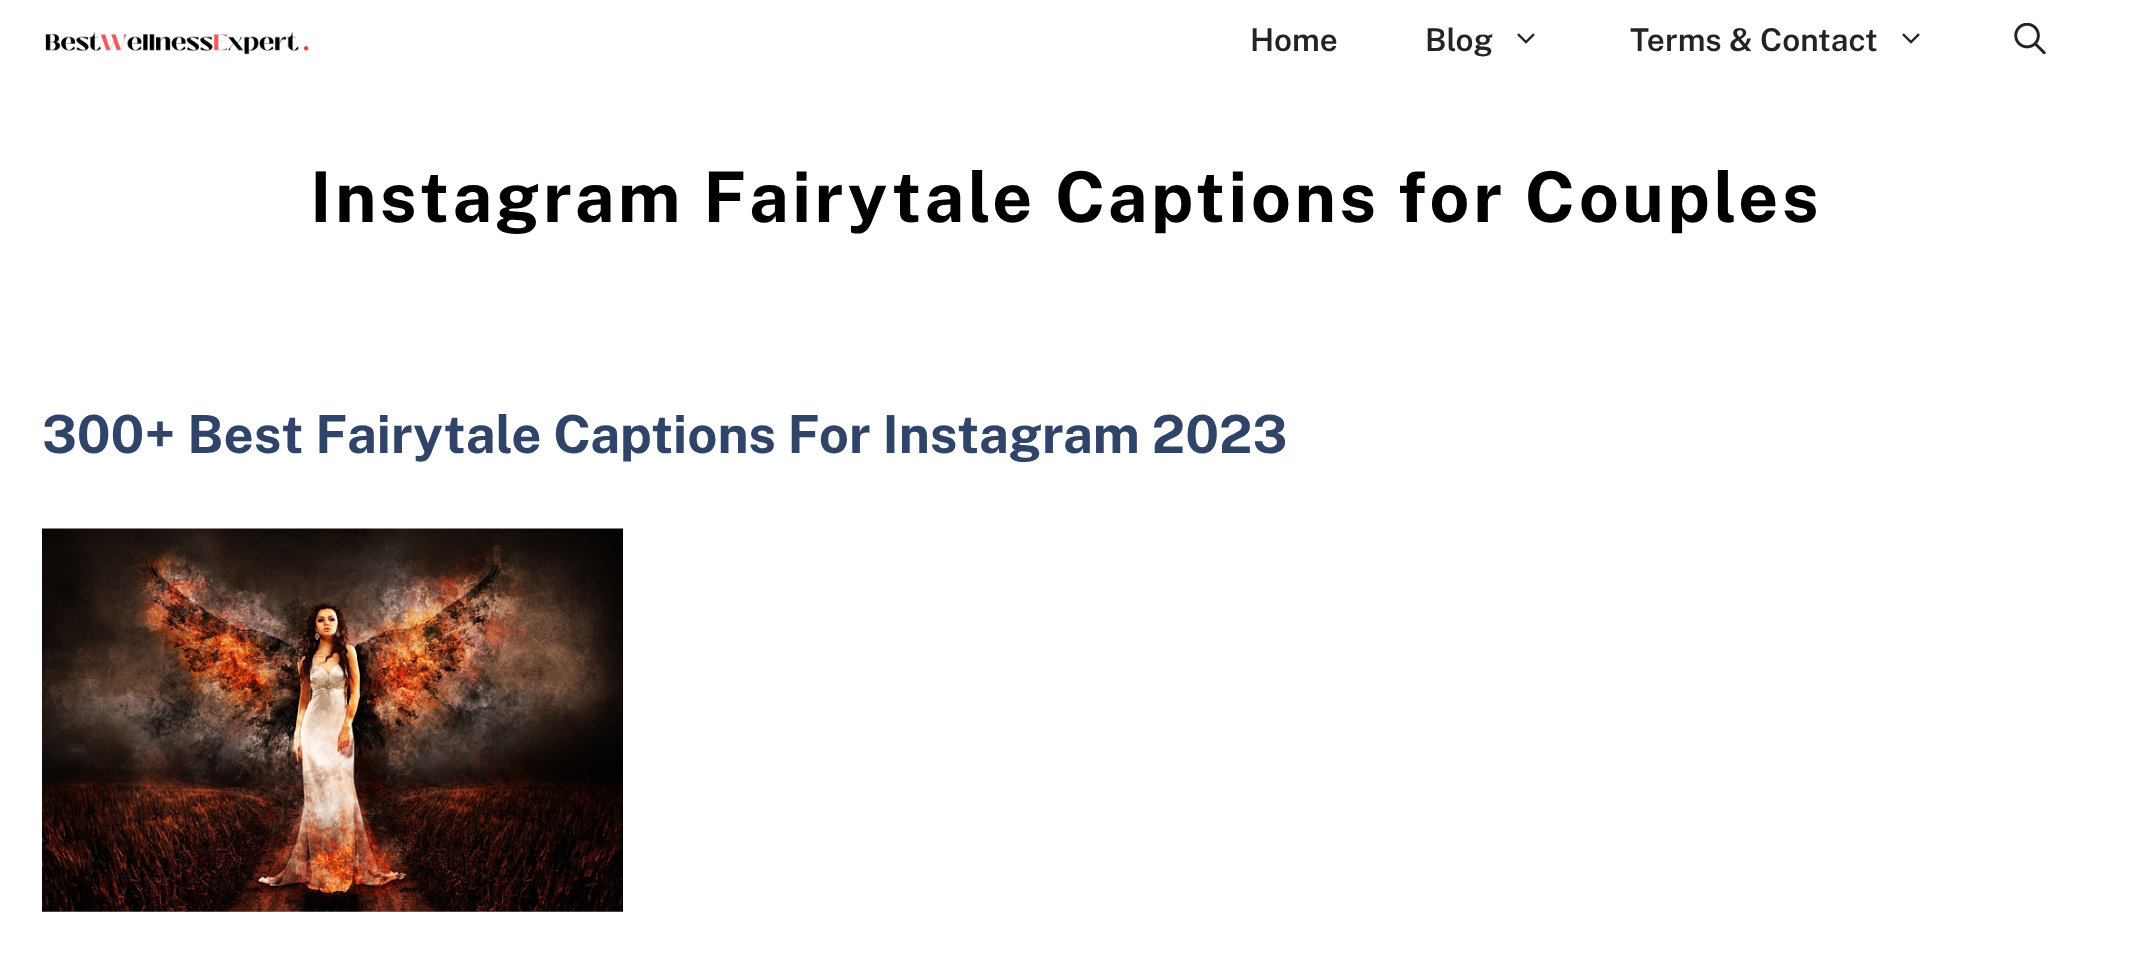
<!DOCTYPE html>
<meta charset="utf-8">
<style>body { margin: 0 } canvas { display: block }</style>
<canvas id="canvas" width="2130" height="964"></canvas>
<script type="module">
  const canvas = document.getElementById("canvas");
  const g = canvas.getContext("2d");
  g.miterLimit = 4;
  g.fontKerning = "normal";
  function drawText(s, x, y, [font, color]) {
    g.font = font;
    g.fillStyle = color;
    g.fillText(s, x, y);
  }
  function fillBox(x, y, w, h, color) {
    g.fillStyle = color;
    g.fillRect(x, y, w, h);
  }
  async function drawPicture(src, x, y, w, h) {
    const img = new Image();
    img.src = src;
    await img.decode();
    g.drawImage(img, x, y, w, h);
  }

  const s1 = ["600 31.5px Public Sans", "#242226"];
  const s2 = ["bold 70px Public Sans", "#000000"];
  const s3 = ["bold 52.5px Public Sans", "#2F4468"];

  fillBox(0, 0, 2130, 964, "#FFFFFF");
  await drawPicture("pic1.png", 45, 32, 264, 23);
  g.letterSpacing = "0.05px";
  drawText("Home", 1250, 51, s1);
  drawText("Blog", 1425, 51, s1);
  await drawPicture("pic2.png", 1517, 33, 18, 11);
  drawText("Terms & Contact", 1630, 51, s1);
  await drawPicture("pic2.png", 1902, 33, 18, 11);
  await drawPicture("pic3.png", 2014, 23, 32, 31);
  g.letterSpacing = "3.5px";
  drawText("Instagram Fairytale Captions for Couples", 310, 222, s2);
  g.letterSpacing = "0.05px";
  drawText("300+ Best Fairytale Captions For Instagram 2023", 42, 453, s3);
  await drawPicture("pic4.png", 42, 528, 581, 384);
</script>
